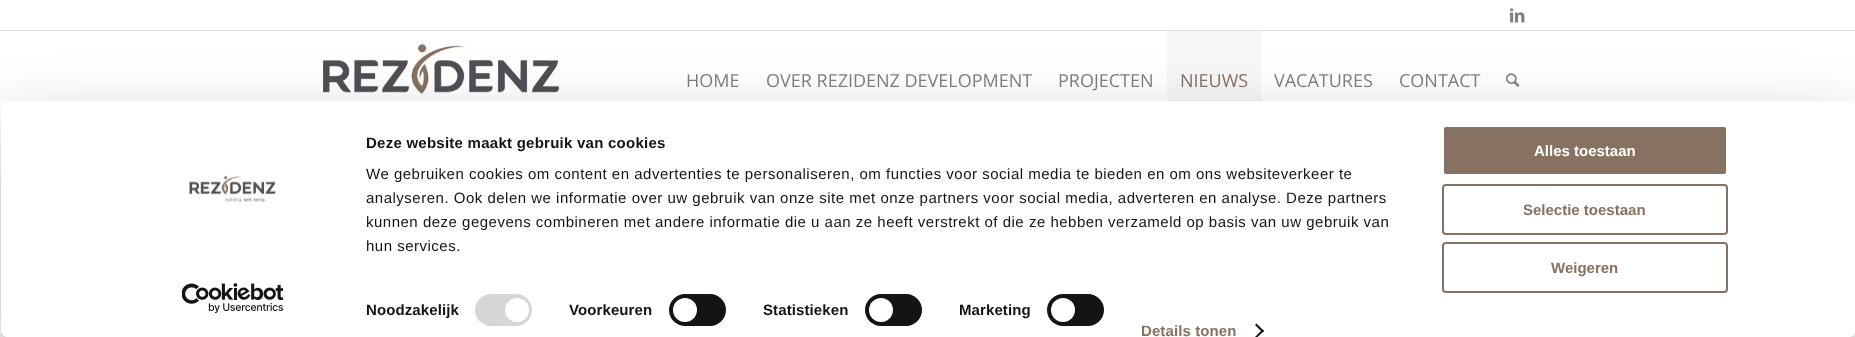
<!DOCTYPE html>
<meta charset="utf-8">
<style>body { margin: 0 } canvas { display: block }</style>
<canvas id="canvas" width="1855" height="337"></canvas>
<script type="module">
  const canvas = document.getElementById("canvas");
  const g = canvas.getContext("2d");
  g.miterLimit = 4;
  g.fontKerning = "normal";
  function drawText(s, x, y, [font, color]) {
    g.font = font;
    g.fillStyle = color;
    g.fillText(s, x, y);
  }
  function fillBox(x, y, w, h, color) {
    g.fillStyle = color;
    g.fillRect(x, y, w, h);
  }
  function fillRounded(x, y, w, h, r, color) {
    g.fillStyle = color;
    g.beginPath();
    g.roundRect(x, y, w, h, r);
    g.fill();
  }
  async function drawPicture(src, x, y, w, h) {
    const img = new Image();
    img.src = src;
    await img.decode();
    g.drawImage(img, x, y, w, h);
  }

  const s1 = ["18px Open Sans", "#808080"];
  const s2 = ["18px Open Sans", "#877261"];
  const s3 = ["bold 15px Liberation Sans", "#141414"];
  const s4 = ["15px Liberation Sans", "#141414"];
  const s5 = ["bold 15px Liberation Sans", "#877261"];
  const s6 = ["bold 15px Liberation Sans", "#FFFFFF"];

  fillBox(0, 0, 1855, 337, "#FFFFFF");
  fillBox(0, 30, 1855, 1, "#E1E1E1");
  await drawPicture("pic1.png", 1510, 8, 15, 15);
  fillBox(0, 130, 1, 1, "#E1E1E1");
  await drawPicture("pic2.png", 323, 44, 236, 51);
  drawText("HOME", 686, 87, s1);
  drawText("OVER REZIDENZ DEVELOPMENT", 766, 87, s1);
  drawText("PROJECTEN", 1058, 87, s1);
  fillBox(1167, 31, 94, 70, "#F7F7F7");
  drawText("NIEUWS", 1180, 87, s2);
  drawText("VACATURES", 1274, 87, s1);
  drawText("CONTACT", 1399, 87, s1);
  await drawPicture("pic3.png", 1506, 73, 14, 14);
  g.save();
  g.beginPath();
  g.moveTo(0, 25);
  g.lineTo(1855, 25);
  g.lineTo(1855, 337);
  g.lineTo(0, 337);
  g.closePath();
  g.moveTo(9, 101);
  g.lineTo(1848, 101);
  g.bezierCurveTo(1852.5, 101, 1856, 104.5, 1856, 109);
  g.lineTo(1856, 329);
  g.bezierCurveTo(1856, 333.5, 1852.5, 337, 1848, 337);
  g.lineTo(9, 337);
  g.bezierCurveTo(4.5, 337, 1, 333.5, 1, 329);
  g.lineTo(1, 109);
  g.bezierCurveTo(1, 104.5, 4.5, 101, 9, 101);
  g.closePath();
  g.clip("evenodd");
  g.fillStyle = "rgba(0, 0, 0, 0.3)";
  g.filter = "blur(35px)";
  g.beginPath();
  g.roundRect(1, 131, 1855, 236, 8);
  g.fill();
  g.filter = "none";
  g.restore();
  fillRounded(1, 101, 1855, 236, 8, "#FFFFFF");
  await drawPicture("pic4.png", 189, 175, 87, 28);
  await drawPicture("pic5.png", 182, 283, 102, 30);
  g.letterSpacing = "0.25px";
  drawText("Deze website maakt gebruik van cookies", 366, 148, s3);
  g.letterSpacing = "0.5px";
  drawText("We gebruiken cookies om content en advertenties te personaliseren, om functies voor social media te bieden en om ons websiteverkeer te", 366, 179, s4);
  drawText("analyseren. Ook delen we informatie over uw gebruik van onze site met onze partners voor social media, adverteren en analyse. Deze partners", 366, 203, s4);
  drawText("kunnen deze gegevens combineren met andere informatie die u aan ze heeft verstrekt of die ze hebben verzameld op basis van uw gebruik van", 366, 227, s4);
  drawText("hun services.", 366, 251, s4);
  g.letterSpacing = "0.1px";
  drawText("Noodzakelijk", 366, 315, s3);
  fillRounded(475, 294, 57, 32, 16, "#D6D6D6");
  g.fillStyle = "#FFFFFF";
  g.beginPath();
  g.arc(517, 310, 12, 0, Math.PI * 2);
  g.fill();
  drawText("Voorkeuren", 569, 315, s3);
  fillRounded(669, 294, 57, 32, 16, "#141414");
  g.fillStyle = "#FFFFFF";
  g.beginPath();
  g.arc(685, 310, 12, 0, Math.PI * 2);
  g.fill();
  drawText("Statistieken", 763, 315, s3);
  fillRounded(865, 294, 57, 32, 16, "#141414");
  g.fillStyle = "#FFFFFF";
  g.beginPath();
  g.arc(881, 310, 12, 0, Math.PI * 2);
  g.fill();
  drawText("Marketing", 959, 315, s3);
  fillRounded(1047, 294, 57, 32, 16, "#141414");
  g.fillStyle = "#FFFFFF";
  g.beginPath();
  g.arc(1063, 310, 12, 0, Math.PI * 2);
  g.fill();
  drawText("Details tonen", 1141, 336, s5);
  g.fillStyle = "#141414";
  g.beginPath();
  g.moveTo(1256.5, 323.5);
  g.lineTo(1264, 331);
  g.lineTo(1262.5, 332.5);
  g.lineTo(1255, 325);
  g.closePath();
  g.fill();
  g.beginPath();
  g.moveTo(1262.5, 329.5);
  g.lineTo(1264, 331);
  g.lineTo(1257.5, 337);
  g.lineTo(1255, 337);
  g.closePath();
  g.fill();
  g.fillStyle = "#877261";
  g.beginPath();
  g.roundRect(1443, 126, 284, 49, 3);
  g.fill();
  g.strokeStyle = "#FFFFFF";
  g.lineWidth = 2;
  g.stroke();
  g.letterSpacing = "0px";
  drawText("Alles toestaan", 1534, 156, s6);
  g.beginPath();
  g.roundRect(1443, 185, 284, 49, 3);
  g.strokeStyle = "#877261";
  g.stroke();
  drawText("Selectie toestaan", 1523, 215, s5);
  g.beginPath();
  g.roundRect(1443, 243, 284, 49, 3);
  g.stroke();
  drawText("Weigeren", 1551, 273, s5);
</script>
